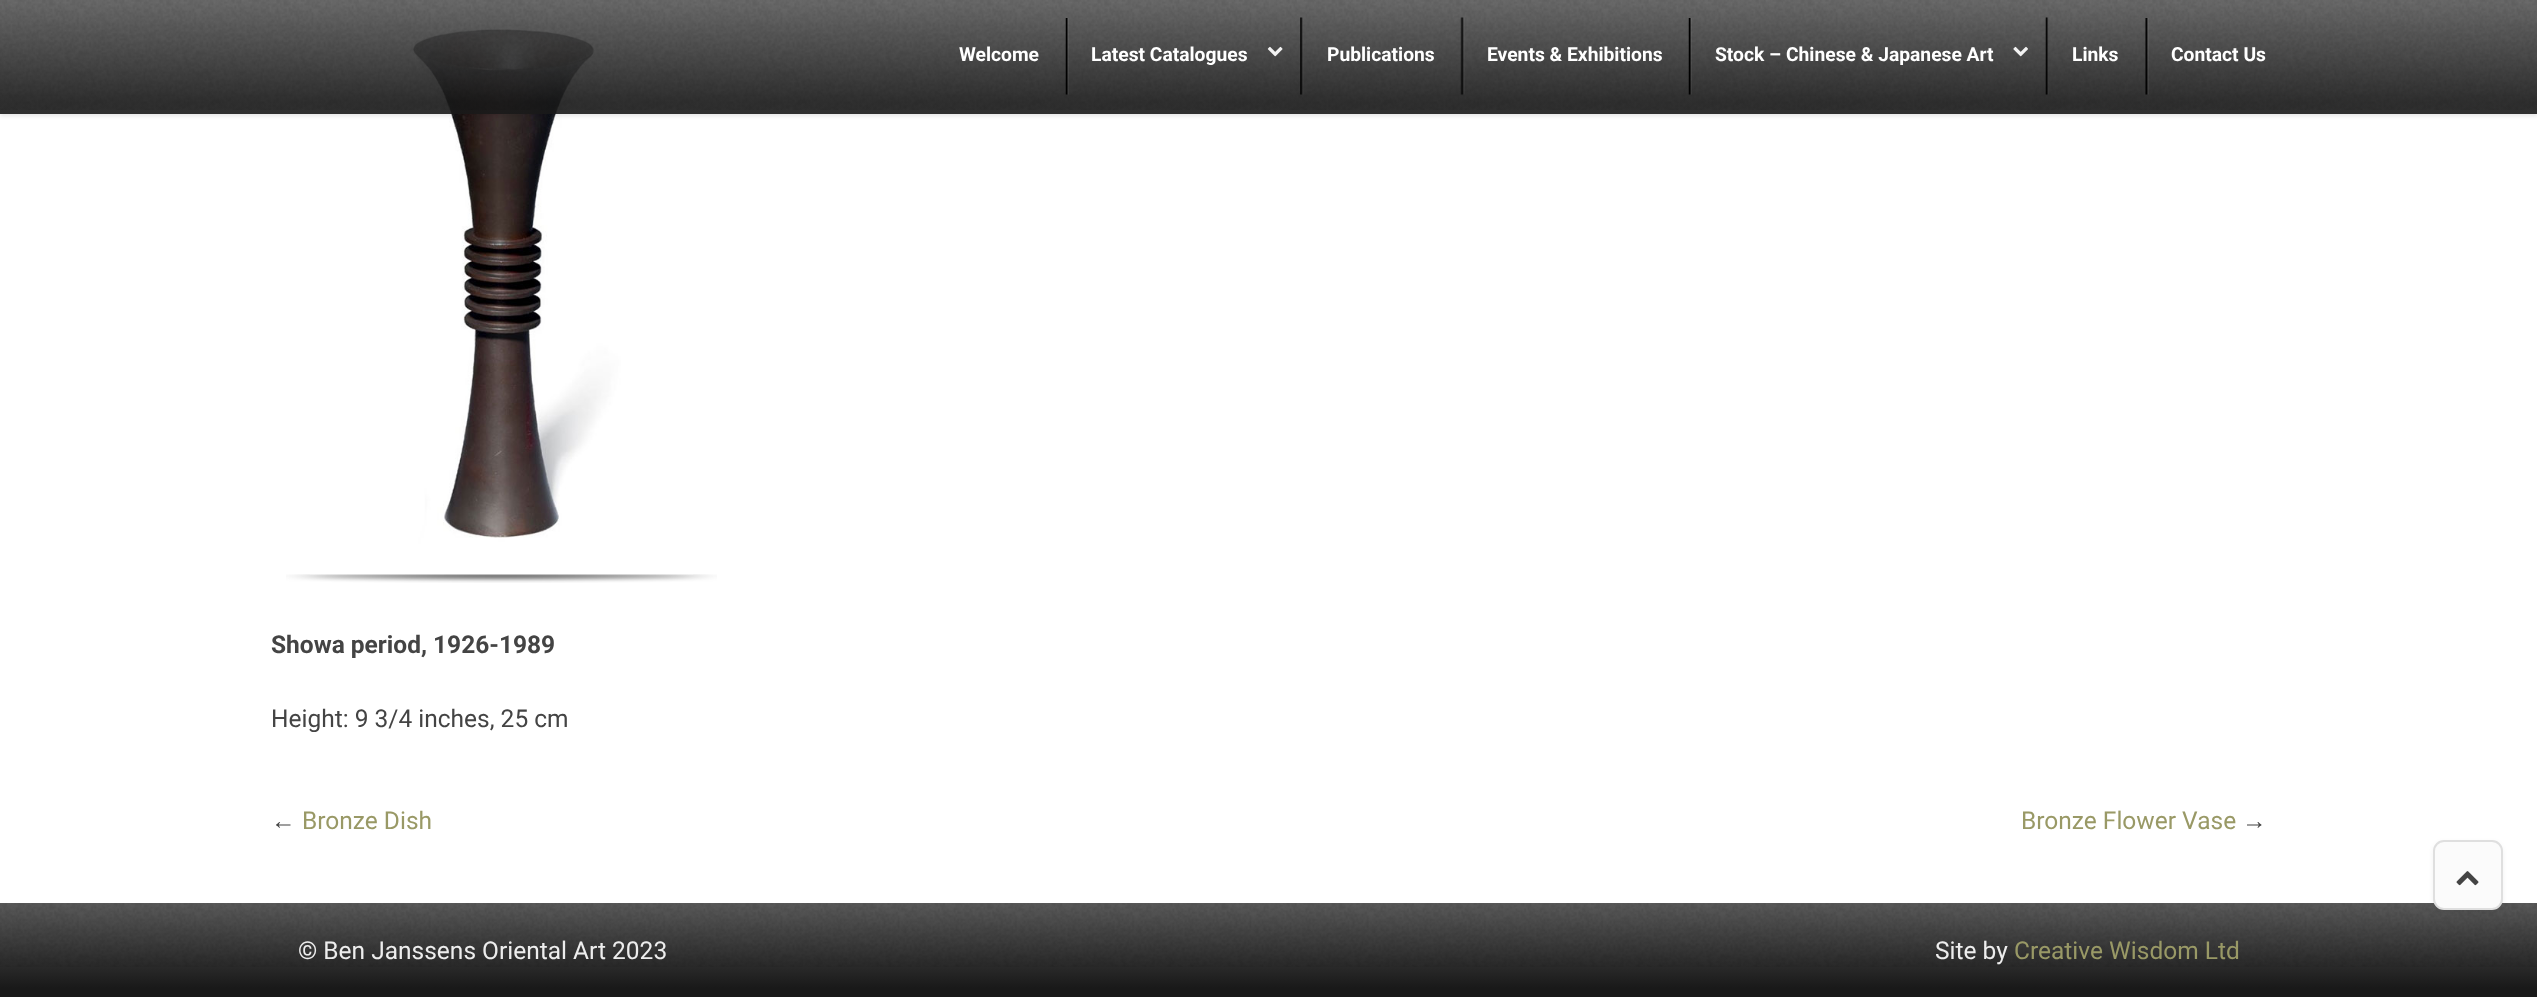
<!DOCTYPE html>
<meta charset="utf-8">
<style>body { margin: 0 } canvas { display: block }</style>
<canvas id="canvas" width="2537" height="997"></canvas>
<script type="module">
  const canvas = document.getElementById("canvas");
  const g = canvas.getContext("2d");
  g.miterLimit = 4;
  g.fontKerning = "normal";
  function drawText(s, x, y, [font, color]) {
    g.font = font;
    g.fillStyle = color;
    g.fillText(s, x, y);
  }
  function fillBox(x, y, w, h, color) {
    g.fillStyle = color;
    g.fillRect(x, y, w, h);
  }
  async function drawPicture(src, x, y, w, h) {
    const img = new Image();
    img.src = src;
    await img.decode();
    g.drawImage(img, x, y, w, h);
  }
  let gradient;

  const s1 = ["bold 19.25px Roboto", "#FFFFFF"];
  const s2 = ["bold 24.5px Roboto", "#444444"];
  const s3 = ["24.5px Roboto", "#444444"];
  const s4 = ["24.5px Liberation Serif", "#444444"];
  const s5 = ["24.5px Roboto", "#999966"];
  const s6 = ["24.5px Roboto", "#EDEDED"];

  fillBox(0, 0, 2537, 997, "#FFFFFF");
  await drawPicture("pic11.png", 286, 574, 431, 9);
  await drawPicture("pic10.png", 310, 29, 383, 546);
  g.save();
  g.beginPath();
  g.moveTo(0, 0);
  g.lineTo(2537, 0);
  g.lineTo(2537, 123);
  g.lineTo(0, 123);
  g.closePath();
  g.moveTo(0, 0);
  g.lineTo(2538, 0);
  g.lineTo(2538, 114);
  g.lineTo(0, 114);
  g.closePath();
  g.clip("evenodd");
  g.fillStyle = "rgba(0, 0, 0, 0.1)";
  g.filter = "blur(2px)";
  g.beginPath();
  g.rect(0, 2, 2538, 114);
  g.fill();
  g.filter = "none";
  g.restore();
  gradient = g.createLinearGradient(0, 0, 0, 102);
  gradient.addColorStop(0, "rgba(91, 91, 91, 0.9)");
  gradient.addColorStop(1, "rgba(25, 25, 25, 0.9)");
  g.fillStyle = gradient;
  g.fillRect(0, 0, 2537, 114);
  await drawPicture("pic1.png", 0, 0, 2537, 110);
  drawText("Welcome", 959, 61, s1);
  await drawPicture("pic2.png", 1065, 18, 4, 77);
  drawText("Latest Catalogues", 1091, 61, s1);
  await drawPicture("pic3.png", 1267, 46, 16, 11);
  await drawPicture("pic4.png", 1300, 17, 4, 78);
  drawText("Publications", 1327, 61, s1);
  await drawPicture("pic5.png", 1460, 17, 5, 78);
  drawText("Events & Exhibitions", 1487, 61, s1);
  await drawPicture("pic6.png", 1688, 18, 4, 77);
  drawText("Stock – Chinese & Japanese Art", 1715, 61, s1);
  await drawPicture("pic7.png", 2013, 46, 15, 11);
  await drawPicture("pic8.png", 2045, 17, 4, 78);
  drawText("Links", 2072, 61, s1);
  await drawPicture("pic9.png", 2145, 18, 4, 77);
  drawText("Contact Us", 2171, 61, s1);
  drawText("Showa period, 1926-1989", 271, 653, s2);
  drawText("Height: 9 3/4 inches, 25 cm", 271, 727, s3);
  drawText("←", 271, 829, s4);
  drawText("Bronze Dish", 302, 829, s5);
  drawText("Bronze Flower Vase", 2021, 829, s5);
  drawText("→", 2242, 829, s4);
  gradient = g.createLinearGradient(0, 903, 0, 988);
  gradient.addColorStop(0, "#5B5B5B");
  gradient.addColorStop(1, "#191919");
  g.fillStyle = gradient;
  g.fillRect(0, 903, 2537, 94);
  await drawPicture("pic13.png", 0, 903, 2537, 64);
  g.fillStyle = "rgba(0, 0, 0, 0.05)";
  g.filter = "blur(2.5px)";
  g.beginPath();
  g.roundRect(2433, 842, 70, 70, 11);
  g.fill();
  g.filter = "none";
  g.fillStyle = "#FBFBFB";
  g.beginPath();
  g.roundRect(2434, 841, 68, 68, 10);
  g.fill();
  g.strokeStyle = "#DFDFDF";
  g.lineWidth = 2;
  g.stroke();
  await drawPicture("pic12.png", 2456, 871, 23, 15);
  drawText("© Ben Janssens Oriental Art 2023", 298, 959, s6);
  drawText("Site by", 1935, 959, s6);
  drawText("Creative Wisdom Ltd", 2014, 959, s5);
</script>
